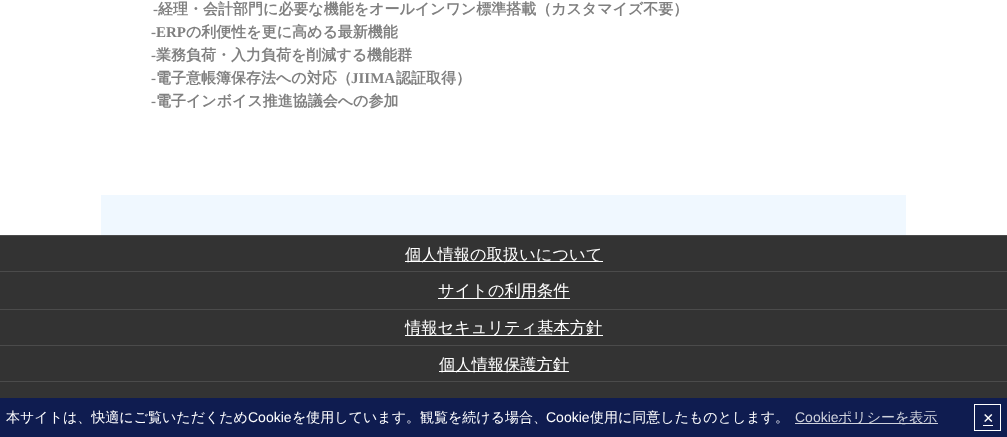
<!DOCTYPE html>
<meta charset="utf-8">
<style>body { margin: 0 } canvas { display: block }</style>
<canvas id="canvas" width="1007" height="437"></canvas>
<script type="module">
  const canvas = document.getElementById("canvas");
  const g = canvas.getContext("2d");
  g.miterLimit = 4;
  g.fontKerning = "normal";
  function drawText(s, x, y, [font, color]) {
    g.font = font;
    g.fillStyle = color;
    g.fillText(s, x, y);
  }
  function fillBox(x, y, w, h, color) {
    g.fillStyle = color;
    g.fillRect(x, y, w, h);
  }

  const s1 = ["bold 15px Liberation Serif", "#808080"];
  const s2 = ["bold 15px WenQuanYi Zen Hei", "#808080"];
  const s3 = ["500 16.25px WenQuanYi Zen Hei", "#FFFFFF"];
  const s4 = ["500 14px WenQuanYi Zen Hei", "#FFFFFF"];
  const s5 = ["14px Liberation Sans", "#FFFFFF"];
  const s6 = ["14px Liberation Sans", "#CFD2DC"];
  const s7 = ["500 14px WenQuanYi Zen Hei", "#CFD2DC"];
  const s8 = ["18px Liberation Sans", "#FFFFFF"];

  fillBox(0, 0, 1007, 437, "#FFFFFF");
  drawText("-", 153, 14, s1);
  drawText("経理・会計部門に必要な機能をオールインワン標準搭載（カスタマイズ不要）", 158, 14, s2);
  drawText("-ERP", 151, 37, s1);
  drawText("の利便性を更に高める最新機能", 186, 37, s2);
  drawText("-", 151, 60, s1);
  drawText("業務負荷・入力負荷を削減する機能群", 156, 60, s2);
  drawText("-", 151, 83, s1);
  drawText("電子意帳簿保存法への対応（", 156, 83, s2);
  drawText("JIIMA", 351, 83, s1);
  drawText("認証取得）", 396, 83, s2);
  drawText("-", 151, 106, s1);
  drawText("電子インボイス推進協議会への参加", 156, 106, s2);
  fillBox(101, 195, 805, 40, "#F0F8FF");
  fillBox(0, 236, 1007, 162, "#333333");
  fillBox(0, 235, 1007, 1, "#4B4B4B");
  fillBox(405, 261, 198, 1, "#FFFFFF");
  drawText("個人情報の取扱いについて", 405, 260, s3);
  fillBox(0, 271, 1007, 1, "#4B4B4B");
  fillBox(438, 298, 132, 1, "#FFFFFF");
  drawText("サイトの利用条件", 438, 296, s3);
  fillBox(0, 309, 1007, 1, "#4B4B4B");
  fillBox(405, 335, 198, 1, "#FFFFFF");
  drawText("情報セキュリティ基本方針", 405, 333, s3);
  fillBox(0, 345, 1007, 1, "#4B4B4B");
  fillBox(439, 371, 130, 1, "#FFFFFF");
  drawText("個人情報保護方針", 439, 370, s3);
  fillBox(0, 381, 1007, 1, "#4B4B4B");
  fillBox(0, 398, 1007, 39, "#0F1C50");
  drawText("本サイトは、快適にご覧いただくため", 6, 422, s4);
  drawText("Cookie", 248, 422, s5);
  drawText("を使用しています。観覧を続ける場合、", 292, 422, s4);
  drawText("Cookie", 546, 422, s5);
  drawText("使用に同意したものとします。", 590, 422, s4);
  drawText("Cookie", 795, 422, s6);
  fillBox(795, 423, 143, 1, "#CFD2DC");
  drawText("ポリシーを表示", 838, 422, s7);
  g.strokeStyle = "#FFFFFF";
  g.strokeRect(974.5, 404.5, 26, 26);
  drawText("×", 983, 424, s8);
  fillBox(983, 425, 10, 1, "#FFFFFF");
</script>
